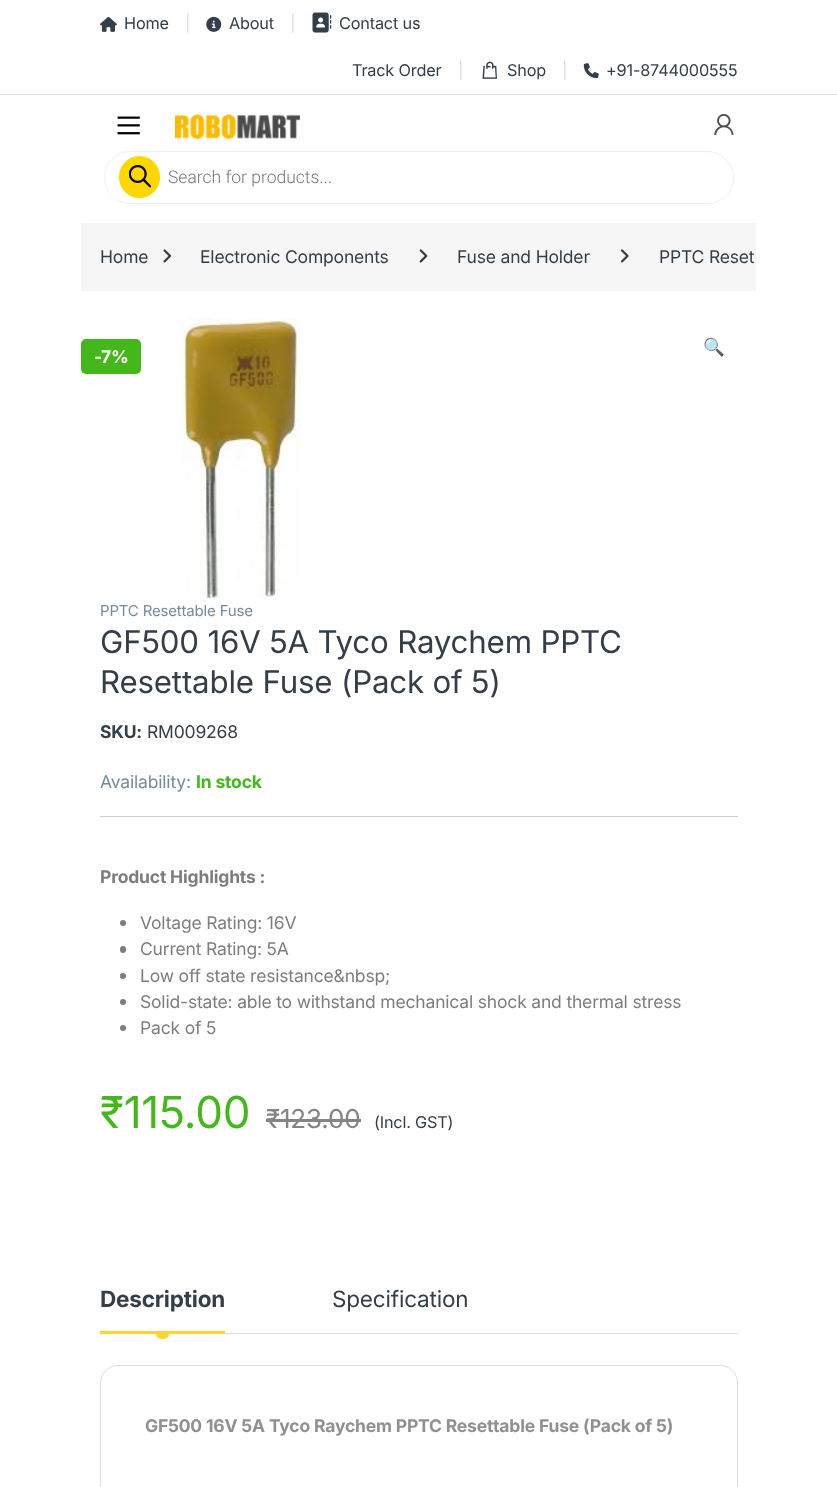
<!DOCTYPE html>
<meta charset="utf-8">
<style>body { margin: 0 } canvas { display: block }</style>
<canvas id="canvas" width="837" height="1487"></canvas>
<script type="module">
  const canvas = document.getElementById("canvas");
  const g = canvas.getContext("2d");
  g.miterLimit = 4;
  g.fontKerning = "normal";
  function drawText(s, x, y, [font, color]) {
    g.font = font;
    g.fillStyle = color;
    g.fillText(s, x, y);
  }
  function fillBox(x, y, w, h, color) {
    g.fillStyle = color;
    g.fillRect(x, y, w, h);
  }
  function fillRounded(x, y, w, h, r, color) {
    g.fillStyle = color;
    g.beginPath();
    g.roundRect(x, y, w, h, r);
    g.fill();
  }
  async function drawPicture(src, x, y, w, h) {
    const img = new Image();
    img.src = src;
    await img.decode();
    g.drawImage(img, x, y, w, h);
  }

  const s1 = ["16.25px Inter", "#333E48"];
  const s2 = ["16.25px Inter", "#DDDDDD"];
  const s3 = ["300 17.5px Roboto", "#777777"];
  const s4 = ["17.5px Inter", "#333E48"];
  const s5 = ["bold 17.5px Inter", "#FFFFFF"];
  const s6 = ["17.5px Noto Color Emoji", "#333E48"];
  const s7 = ["15px Inter", "#768B9E"];
  const s8 = ["31.25px Inter", "#333E48"];
  const s9 = ["bold 17.5px Inter", "#333E48"];
  const s10 = ["17.5px Inter", "#768B9E"];
  const s11 = ["bold 17.5px Inter", "#44B81B"];
  const s12 = ["bold 17.5px Inter", "#7D7D7D"];
  const s13 = ["17.5px Inter", "#7D7D7D"];
  const s14 = ["44px Inter", "#44B81B"];
  const s15 = ["26px Inter", "#848484"];
  const s16 = ["bold 22.5px Inter", "#333E48"];
  const s17 = ["22.5px Inter", "#333E48"];
  const s18 = ["bold 17.5px Inter", "#919090"];

  fillBox(0, 0, 837, 1487, "#FFFFFF");
  fillBox(0, 94, 837, 1, "#DDDDDD");
  await drawPicture("pic1.png", 100, 16, 17, 16);
  g.letterSpacing = "-0.18px";
  drawText("Home", 124, 29, s1);
  drawText("|", 185, 29, s2);
  await drawPicture("pic2.png", 206, 16, 16, 16);
  drawText("About", 229, 29, s1);
  drawText("|", 290, 29, s2);
  await drawPicture("pic3.png", 312, 12, 20, 21);
  drawText("Contact us", 339, 29, s1);
  drawText("Track Order", 352, 76, s1);
  drawText("|", 458, 76, s2);
  await drawPicture("pic4.png", 482, 61, 15, 18);
  drawText("Shop", 507, 76, s1);
  drawText("|", 562, 76, s2);
  await drawPicture("pic5.png", 583, 63, 16, 16);
  drawText("+91-8744000555", 606, 76, s1);
  await drawPicture("pic6.png", 117, 116, 23, 19);
  await drawPicture("pic7.png", 175, 114, 125, 26);
  await drawPicture("pic8.png", 714, 114, 20, 22);
  g.beginPath();
  g.roundRect(104.5, 151.5, 629, 52, 26);
  g.strokeStyle = "#EEEEEE";
  g.stroke();
  g.fillStyle = "#FFFFFF";
  g.beginPath();
  g.roundRect(106.5, 154.5, 625, 47, 23.5);
  g.fill();
  g.strokeStyle = "#FFFFFF";
  g.lineWidth = 3;
  g.stroke();
  fillRounded(119, 156, 41, 42, 20.5, "#FED700");
  await drawPicture("pic9.png", 129, 165, 22, 23);
  g.letterSpacing = "0px";
  drawText("Search for products...", 168, 183, s3);
  fillBox(81, 223, 675, 68, "#F7F6F6");
  g.letterSpacing = "-0.18px";
  drawText("Home", 100, 263, s4);
  await drawPicture("pic10.png", 163, 249, 9, 14);
  drawText("Electronic Components", 200, 263, s4);
  await drawPicture("pic11.png", 419, 249, 9, 14);
  drawText("Fuse and Holder", 457, 263, s4);
  await drawPicture("pic12.png", 620, 249, 9, 14);
  drawText("PPTC Reset", 659, 263, s4);
  fillRounded(81, 339, 60, 35, 5, "#44B81B");
  drawText("-", 94, 363, s5);
  drawText("7%", 101, 363, s5);
  await drawPicture("pic13.png", 180, 318, 121, 281);
  drawText("🔍", 703, 353, s6);
  drawText("PPTC Resettable Fuse", 100, 616, s7);
  drawText("GF500 16V 5A Tyco Raychem PPTC", 100, 653, s8);
  drawText("Resettable Fuse (Pack of 5)", 100, 693, s8);
  drawText("SKU:", 100, 738, s9);
  drawText("RM009268", 147, 738, s4);
  drawText("Availability:", 100, 788, s10);
  drawText("In stock", 196, 788, s11);
  fillBox(100, 816, 638, 1, "#CCCFD1");
  drawText("Product Highlights :", 100, 883, s12);
  g.beginPath();
  g.arc(123, 923, 3, 0, Math.PI * 2);
  g.fill();
  drawText("Voltage Rating: 16V", 140, 929, s13);
  fillRounded(120, 946, 6, 7, 3, "#7D7D7D");
  drawText("Current Rating: 5A", 140, 955, s13);
  g.beginPath();
  g.arc(123, 976, 3, 0, Math.PI * 2);
  g.fill();
  drawText("Low off state resistance&nbsp;", 140, 982, s13);
  g.beginPath();
  g.arc(123, 1002, 3, 0, Math.PI * 2);
  g.fill();
  drawText("Solid-state: able to withstand mechanical shock and thermal stress", 140, 1008, s13);
  g.beginPath();
  g.arc(123, 1028, 3, 0, Math.PI * 2);
  g.fill();
  drawText("Pack of 5", 140, 1034, s13);
  drawText("₹115.00", 100, 1128, s14);
  drawText("₹123.00", 266, 1128, s15);
  fillBox(266, 1119, 95, 3, "#848484");
  drawText("(Incl. GST)", 374, 1128, s1);
  drawText("Description", 100, 1307, s16);
  fillBox(100, 1331, 125, 3, "#FED430");
  g.beginPath();
  g.roundRect(156, 1334, 13, 5, [0, 0, 5, 5]);
  g.fill();
  drawText("Specification", 332, 1307, s17);
  fillBox(225, 1333, 513, 1, "#DDDDDD");
  g.beginPath();
  g.roundRect(100.5, 1365.5, 637, 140, 17.5);
  g.strokeStyle = "#DDDDDD";
  g.lineWidth = 1;
  g.stroke();
  drawText("GF500 16V 5A Tyco Raychem PPTC Resettable Fuse (Pack of 5)", 145, 1432, s18);
</script>
